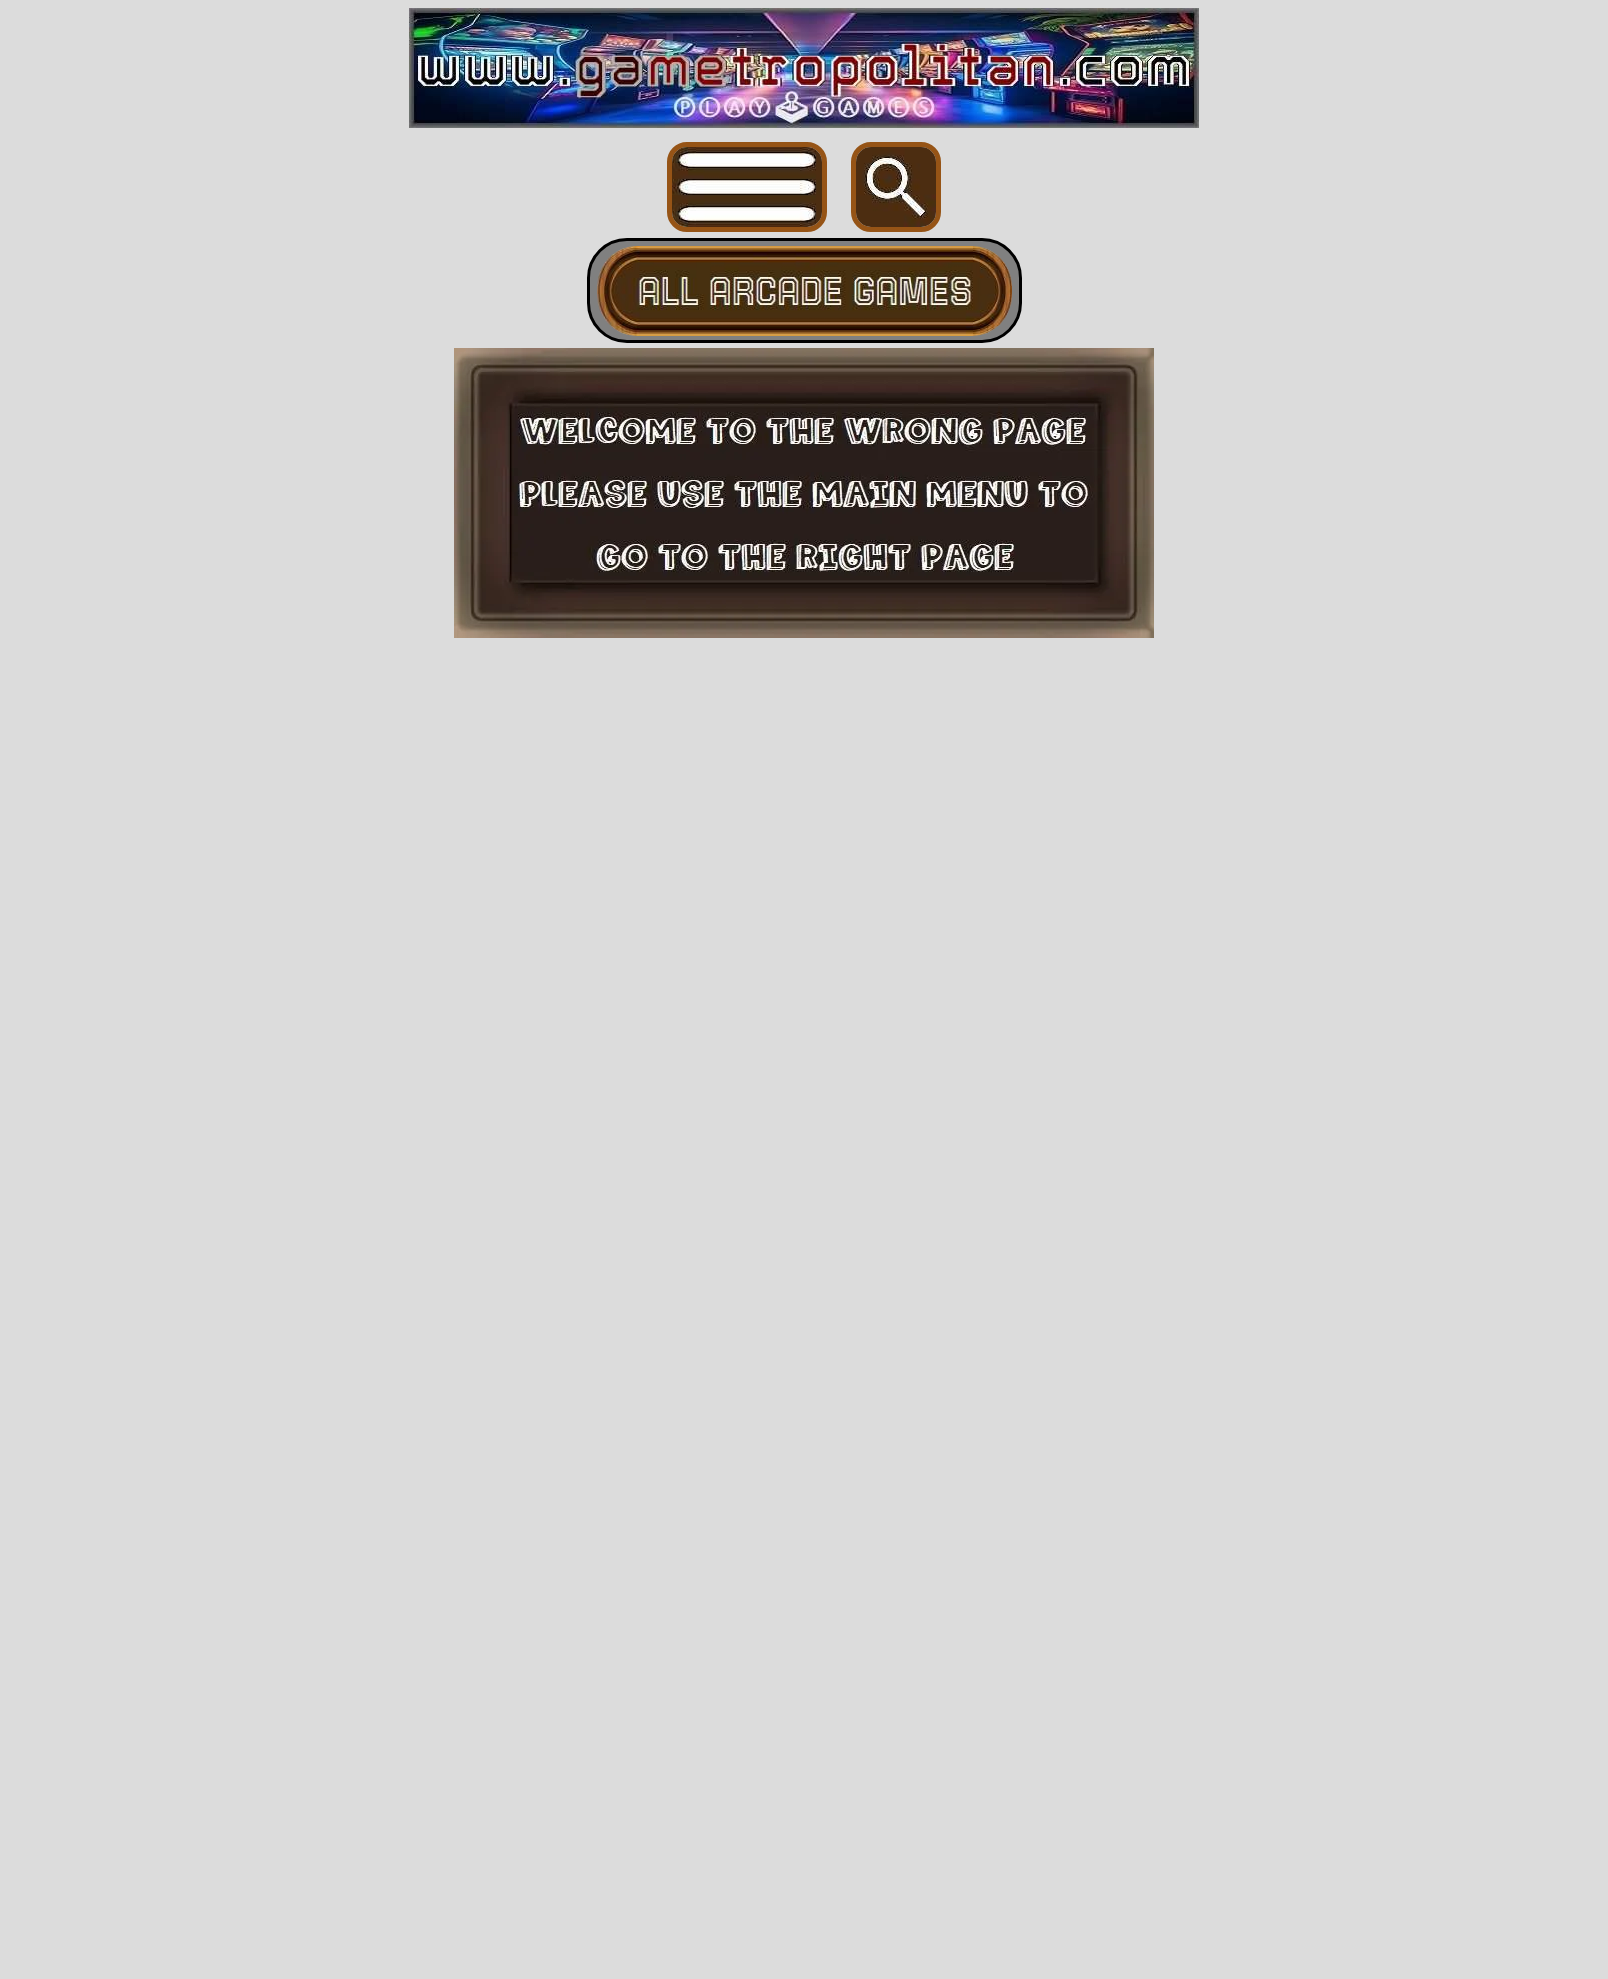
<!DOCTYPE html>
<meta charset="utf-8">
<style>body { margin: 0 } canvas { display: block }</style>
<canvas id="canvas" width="1608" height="1979"></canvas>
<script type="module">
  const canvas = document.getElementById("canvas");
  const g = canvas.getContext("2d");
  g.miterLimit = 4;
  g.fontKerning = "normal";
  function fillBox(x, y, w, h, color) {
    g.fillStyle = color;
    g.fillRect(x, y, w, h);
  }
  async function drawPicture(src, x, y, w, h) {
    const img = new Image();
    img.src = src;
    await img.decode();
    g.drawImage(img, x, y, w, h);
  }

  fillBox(0, 0, 1608, 1979, "#DCDCDC");
  await drawPicture("pic1.png", 409, 8, 790, 120);
  g.beginPath();
  g.roundRect(669.5, 144.5, 155, 85, 17.5);
  g.strokeStyle = "#965416";
  g.lineWidth = 5;
  g.stroke();
  await drawPicture("pic2.png", 672, 147, 150, 80);
  g.beginPath();
  g.roundRect(853.5, 144.5, 85, 85, 17.5);
  g.stroke();
  await drawPicture("pic3.png", 856, 147, 80, 80);
  g.fillStyle = "#808080";
  g.beginPath();
  g.roundRect(588.5, 239.5, 432, 102, 38.5);
  g.fill();
  g.strokeStyle = "#000000";
  g.lineWidth = 3;
  g.stroke();
  await drawPicture("pic4.png", 597, 246, 415, 90);
  await drawPicture("pic5.png", 454, 348, 700, 290);
</script>
